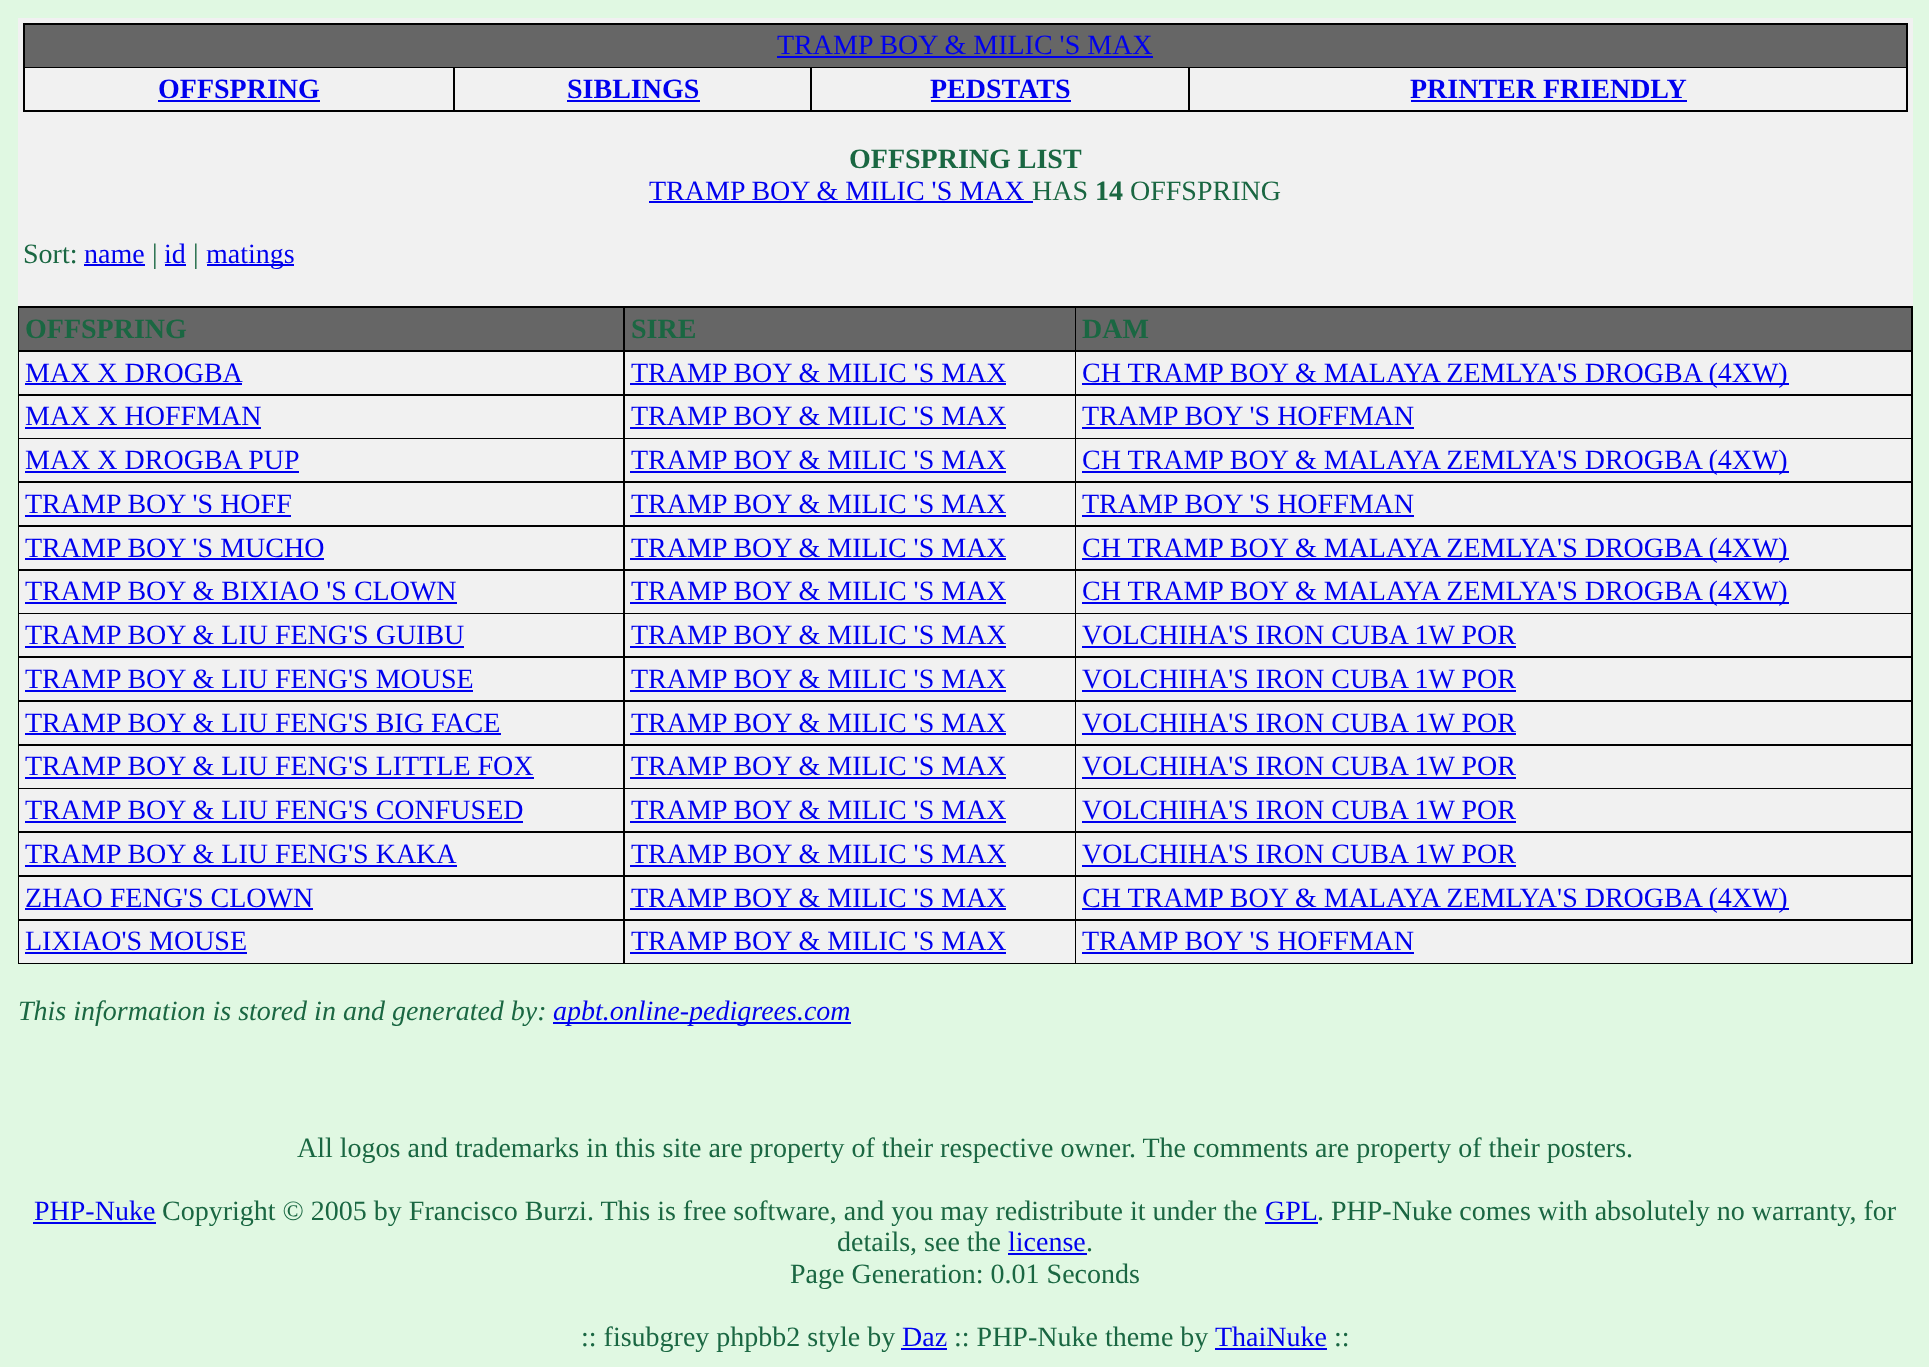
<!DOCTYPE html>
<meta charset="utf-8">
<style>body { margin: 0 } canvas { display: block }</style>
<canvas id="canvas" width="1929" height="1367"></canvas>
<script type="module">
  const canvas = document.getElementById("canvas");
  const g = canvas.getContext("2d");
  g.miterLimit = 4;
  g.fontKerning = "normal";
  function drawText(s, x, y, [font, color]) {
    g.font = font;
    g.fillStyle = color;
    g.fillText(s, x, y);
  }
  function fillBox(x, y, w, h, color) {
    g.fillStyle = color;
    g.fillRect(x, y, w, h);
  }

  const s1 = ["28px Liberation Serif", "#0000EE"];
  const s2 = ["bold 28px Liberation Serif", "#0000EE"];
  const s3 = ["bold 28px Liberation Serif", "#1A6742"];
  const s4 = ["28px Liberation Serif", "#1A6742"];
  const s5 = ["italic 28px Liberation Serif", "#1A6742"];
  const s6 = ["italic 28px Liberation Serif", "#0000EE"];

  fillBox(0, 0, 1929, 1367, "#E0F8E2");
  fillBox(18, 18, 1895, 288, "#F1F1F1");
  fillBox(23, 23, 1885, 89, "#000000");
  fillBox(25, 25, 1881, 42, "#666666");
  drawText("TRAMP BOY & MILIC 'S MAX", 777, 54, s1);
  fillBox(777, 56, 376, 2, "#0000EE");
  fillBox(25, 68, 428, 42, "#F1F1F1");
  drawText("OFFSPRING", 158, 98, s2);
  fillBox(158, 100, 162, 2, "#0000EE");
  fillBox(455, 68, 355, 42, "#F1F1F1");
  drawText("SIBLINGS", 567, 98, s2);
  fillBox(567, 100, 133, 2, "#0000EE");
  fillBox(812, 68, 376, 42, "#F1F1F1");
  drawText("PEDSTATS", 930, 98, s2);
  fillBox(931, 100, 140, 2, "#0000EE");
  fillBox(1190, 68, 716, 42, "#F1F1F1");
  drawText("PRINTER FRIENDLY", 1410, 98, s2);
  fillBox(1411, 100, 276, 2, "#0000EE");
  drawText("OFFSPRING LIST", 849, 168, s3);
  drawText("TRAMP BOY & MILIC 'S MAX", 649, 200, s1);
  fillBox(649, 201, 384, 2, "#0000EE");
  drawText("HAS", 1032, 200, s4);
  drawText("14", 1095, 200, s3);
  drawText("OFFSPRING", 1130, 200, s4);
  drawText("Sort:", 23, 263, s4);
  drawText("name", 84, 263, s1);
  fillBox(84, 264, 61, 2, "#0000EE");
  drawText("|", 152, 263, s4);
  drawText("id", 164, 263, s1);
  fillBox(165, 264, 21, 2, "#0000EE");
  drawText("|", 193, 263, s4);
  fillBox(207, 264, 87, 2, "#0000EE");
  drawText("matings", 206, 263, s1);
  fillBox(18, 306, 1895, 658, "#000000");
  fillBox(19, 308, 604, 42, "#666666");
  drawText("OFFSPRING", 25, 338, s3);
  fillBox(625, 308, 450, 42, "#666666");
  drawText("SIRE", 631, 338, s3);
  fillBox(1076, 308, 835, 42, "#666666");
  drawText("DAM", 1082, 338, s3);
  fillBox(19, 352, 604, 42, "#F1F1F1");
  drawText("MAX X DROGBA", 25, 382, s1);
  fillBox(25, 383, 217, 2, "#0000EE");
  fillBox(625, 352, 450, 42, "#F1F1F1");
  drawText("TRAMP BOY & MILIC 'S MAX", 631, 382, s1);
  fillBox(630, 383, 376, 2, "#0000EE");
  fillBox(1076, 352, 835, 42, "#F1F1F1");
  fillBox(1082, 383, 707, 2, "#0000EE");
  drawText("CH TRAMP BOY & MALAYA ZEMLYA'S DROGBA (4XW)", 1082, 382, s1);
  fillBox(19, 396, 604, 42, "#F1F1F1");
  drawText("MAX X HOFFMAN", 25, 425, s1);
  fillBox(25, 427, 236, 2, "#0000EE");
  fillBox(625, 396, 450, 42, "#F1F1F1");
  drawText("TRAMP BOY & MILIC 'S MAX", 631, 425, s1);
  fillBox(630, 427, 376, 2, "#0000EE");
  fillBox(1076, 396, 835, 42, "#F1F1F1");
  drawText("TRAMP BOY 'S HOFFMAN", 1082, 425, s1);
  fillBox(1082, 427, 332, 2, "#0000EE");
  fillBox(19, 439, 604, 42, "#F1F1F1");
  drawText("MAX X DROGBA PUP", 25, 469, s1);
  fillBox(25, 471, 274, 2, "#0000EE");
  fillBox(625, 439, 450, 42, "#F1F1F1");
  drawText("TRAMP BOY & MILIC 'S MAX", 631, 469, s1);
  fillBox(630, 471, 376, 2, "#0000EE");
  fillBox(1076, 439, 835, 42, "#F1F1F1");
  fillBox(1082, 471, 707, 2, "#0000EE");
  drawText("CH TRAMP BOY & MALAYA ZEMLYA'S DROGBA (4XW)", 1082, 469, s1);
  fillBox(19, 483, 604, 42, "#F1F1F1");
  drawText("TRAMP BOY 'S HOFF", 25, 513, s1);
  fillBox(25, 515, 266, 2, "#0000EE");
  fillBox(625, 483, 450, 42, "#F1F1F1");
  drawText("TRAMP BOY & MILIC 'S MAX", 631, 513, s1);
  fillBox(630, 515, 376, 2, "#0000EE");
  fillBox(1076, 483, 835, 42, "#F1F1F1");
  drawText("TRAMP BOY 'S HOFFMAN", 1082, 513, s1);
  fillBox(1082, 515, 332, 2, "#0000EE");
  fillBox(19, 527, 604, 42, "#F1F1F1");
  drawText("TRAMP BOY 'S MUCHO", 25, 557, s1);
  fillBox(25, 558, 299, 2, "#0000EE");
  fillBox(625, 527, 450, 42, "#F1F1F1");
  drawText("TRAMP BOY & MILIC 'S MAX", 631, 557, s1);
  fillBox(630, 558, 376, 2, "#0000EE");
  fillBox(1076, 527, 835, 42, "#F1F1F1");
  fillBox(1082, 558, 707, 2, "#0000EE");
  drawText("CH TRAMP BOY & MALAYA ZEMLYA'S DROGBA (4XW)", 1082, 557, s1);
  fillBox(19, 571, 604, 42, "#F1F1F1");
  drawText("TRAMP BOY & BIXIAO 'S CLOWN", 25, 600, s1);
  fillBox(25, 602, 432, 2, "#0000EE");
  fillBox(625, 571, 450, 42, "#F1F1F1");
  drawText("TRAMP BOY & MILIC 'S MAX", 631, 600, s1);
  fillBox(630, 602, 376, 2, "#0000EE");
  fillBox(1076, 571, 835, 42, "#F1F1F1");
  fillBox(1082, 602, 707, 2, "#0000EE");
  drawText("CH TRAMP BOY & MALAYA ZEMLYA'S DROGBA (4XW)", 1082, 600, s1);
  fillBox(19, 614, 604, 42, "#F1F1F1");
  drawText("TRAMP BOY & LIU FENG'S GUIBU", 25, 644, s1);
  fillBox(25, 646, 439, 2, "#0000EE");
  fillBox(625, 614, 450, 42, "#F1F1F1");
  drawText("TRAMP BOY & MILIC 'S MAX", 631, 644, s1);
  fillBox(630, 646, 376, 2, "#0000EE");
  fillBox(1076, 614, 835, 42, "#F1F1F1");
  drawText("VOLCHIHA'S IRON CUBA 1W POR", 1082, 644, s1);
  fillBox(1082, 646, 434, 2, "#0000EE");
  fillBox(19, 658, 604, 42, "#F1F1F1");
  drawText("TRAMP BOY & LIU FENG'S MOUSE", 25, 688, s1);
  fillBox(25, 690, 448, 2, "#0000EE");
  fillBox(625, 658, 450, 42, "#F1F1F1");
  drawText("TRAMP BOY & MILIC 'S MAX", 631, 688, s1);
  fillBox(630, 690, 376, 2, "#0000EE");
  fillBox(1076, 658, 835, 42, "#F1F1F1");
  drawText("VOLCHIHA'S IRON CUBA 1W POR", 1082, 688, s1);
  fillBox(1082, 690, 434, 2, "#0000EE");
  fillBox(19, 702, 604, 42, "#F1F1F1");
  drawText("TRAMP BOY & LIU FENG'S BIG FACE", 25, 732, s1);
  fillBox(25, 733, 476, 2, "#0000EE");
  fillBox(625, 702, 450, 42, "#F1F1F1");
  drawText("TRAMP BOY & MILIC 'S MAX", 631, 732, s1);
  fillBox(630, 733, 376, 2, "#0000EE");
  fillBox(1076, 702, 835, 42, "#F1F1F1");
  drawText("VOLCHIHA'S IRON CUBA 1W POR", 1082, 732, s1);
  fillBox(1082, 733, 434, 2, "#0000EE");
  fillBox(19, 746, 604, 42, "#F1F1F1");
  drawText("TRAMP BOY & LIU FENG'S LITTLE FOX", 25, 775, s1);
  fillBox(25, 777, 509, 2, "#0000EE");
  fillBox(625, 746, 450, 42, "#F1F1F1");
  drawText("TRAMP BOY & MILIC 'S MAX", 631, 775, s1);
  fillBox(630, 777, 376, 2, "#0000EE");
  fillBox(1076, 746, 835, 42, "#F1F1F1");
  drawText("VOLCHIHA'S IRON CUBA 1W POR", 1082, 775, s1);
  fillBox(1082, 777, 434, 2, "#0000EE");
  fillBox(19, 789, 604, 42, "#F1F1F1");
  drawText("TRAMP BOY & LIU FENG'S CONFUSED", 25, 819, s1);
  fillBox(25, 821, 498, 2, "#0000EE");
  fillBox(625, 789, 450, 42, "#F1F1F1");
  drawText("TRAMP BOY & MILIC 'S MAX", 631, 819, s1);
  fillBox(630, 821, 376, 2, "#0000EE");
  fillBox(1076, 789, 835, 42, "#F1F1F1");
  drawText("VOLCHIHA'S IRON CUBA 1W POR", 1082, 819, s1);
  fillBox(1082, 821, 434, 2, "#0000EE");
  fillBox(19, 833, 604, 42, "#F1F1F1");
  drawText("TRAMP BOY & LIU FENG'S KAKA", 25, 863, s1);
  fillBox(25, 865, 432, 2, "#0000EE");
  fillBox(625, 833, 450, 42, "#F1F1F1");
  drawText("TRAMP BOY & MILIC 'S MAX", 631, 863, s1);
  fillBox(630, 865, 376, 2, "#0000EE");
  fillBox(1076, 833, 835, 42, "#F1F1F1");
  drawText("VOLCHIHA'S IRON CUBA 1W POR", 1082, 863, s1);
  fillBox(1082, 865, 434, 2, "#0000EE");
  fillBox(19, 877, 604, 42, "#F1F1F1");
  drawText("ZHAO FENG'S CLOWN", 25, 907, s1);
  fillBox(25, 908, 288, 2, "#0000EE");
  fillBox(625, 877, 450, 42, "#F1F1F1");
  drawText("TRAMP BOY & MILIC 'S MAX", 631, 907, s1);
  fillBox(630, 908, 376, 2, "#0000EE");
  fillBox(1076, 877, 835, 42, "#F1F1F1");
  fillBox(1082, 908, 707, 2, "#0000EE");
  drawText("CH TRAMP BOY & MALAYA ZEMLYA'S DROGBA (4XW)", 1082, 907, s1);
  fillBox(19, 921, 604, 42, "#F1F1F1");
  drawText("LIXIAO'S MOUSE", 25, 950, s1);
  fillBox(25, 952, 222, 2, "#0000EE");
  fillBox(625, 921, 450, 42, "#F1F1F1");
  drawText("TRAMP BOY & MILIC 'S MAX", 631, 950, s1);
  fillBox(630, 952, 376, 2, "#0000EE");
  fillBox(1076, 921, 835, 42, "#F1F1F1");
  drawText("TRAMP BOY 'S HOFFMAN", 1082, 950, s1);
  fillBox(1082, 952, 332, 2, "#0000EE");
  drawText("This information is stored in and generated by:", 18, 1020, s5);
  fillBox(553, 1022, 298, 2, "#0000EE");
  drawText("apbt.online-pedigrees.com", 553, 1020, s6);
  drawText("All logos and trademarks in this site are property of their respective owner. The comments are property of their posters.", 297, 1157, s4);
  drawText("PHP-Nuke", 34, 1220, s1);
  fillBox(33, 1222, 123, 2, "#0000EE");
  drawText("Copyright © 2005 by Francisco Burzi. This is free software, and you may redistribute it under the", 162, 1220, s4);
  drawText("GPL", 1265, 1220, s1);
  drawText(". PHP-Nuke comes with absolutely no warranty, for", 1317, 1220, s4);
  fillBox(1265, 1222, 53, 2, "#0000EE");
  drawText("details, see the", 837, 1251, s4);
  drawText("license", 1008, 1251, s1);
  drawText(".", 1086, 1251, s4);
  fillBox(1008, 1253, 79, 2, "#0000EE");
  drawText("Page Generation: 0.01 Seconds", 790, 1283, s4);
  drawText(":: fisubgrey phpbb2 style by", 581, 1346, s4);
  drawText("Daz", 902, 1346, s1);
  fillBox(901, 1348, 46, 2, "#0000EE");
  drawText(":: PHP-Nuke theme by", 954, 1346, s4);
  fillBox(1215, 1348, 112, 2, "#0000EE");
  drawText("ThaiNuke", 1215, 1346, s1);
  drawText("::", 1334, 1346, s4);
</script>
